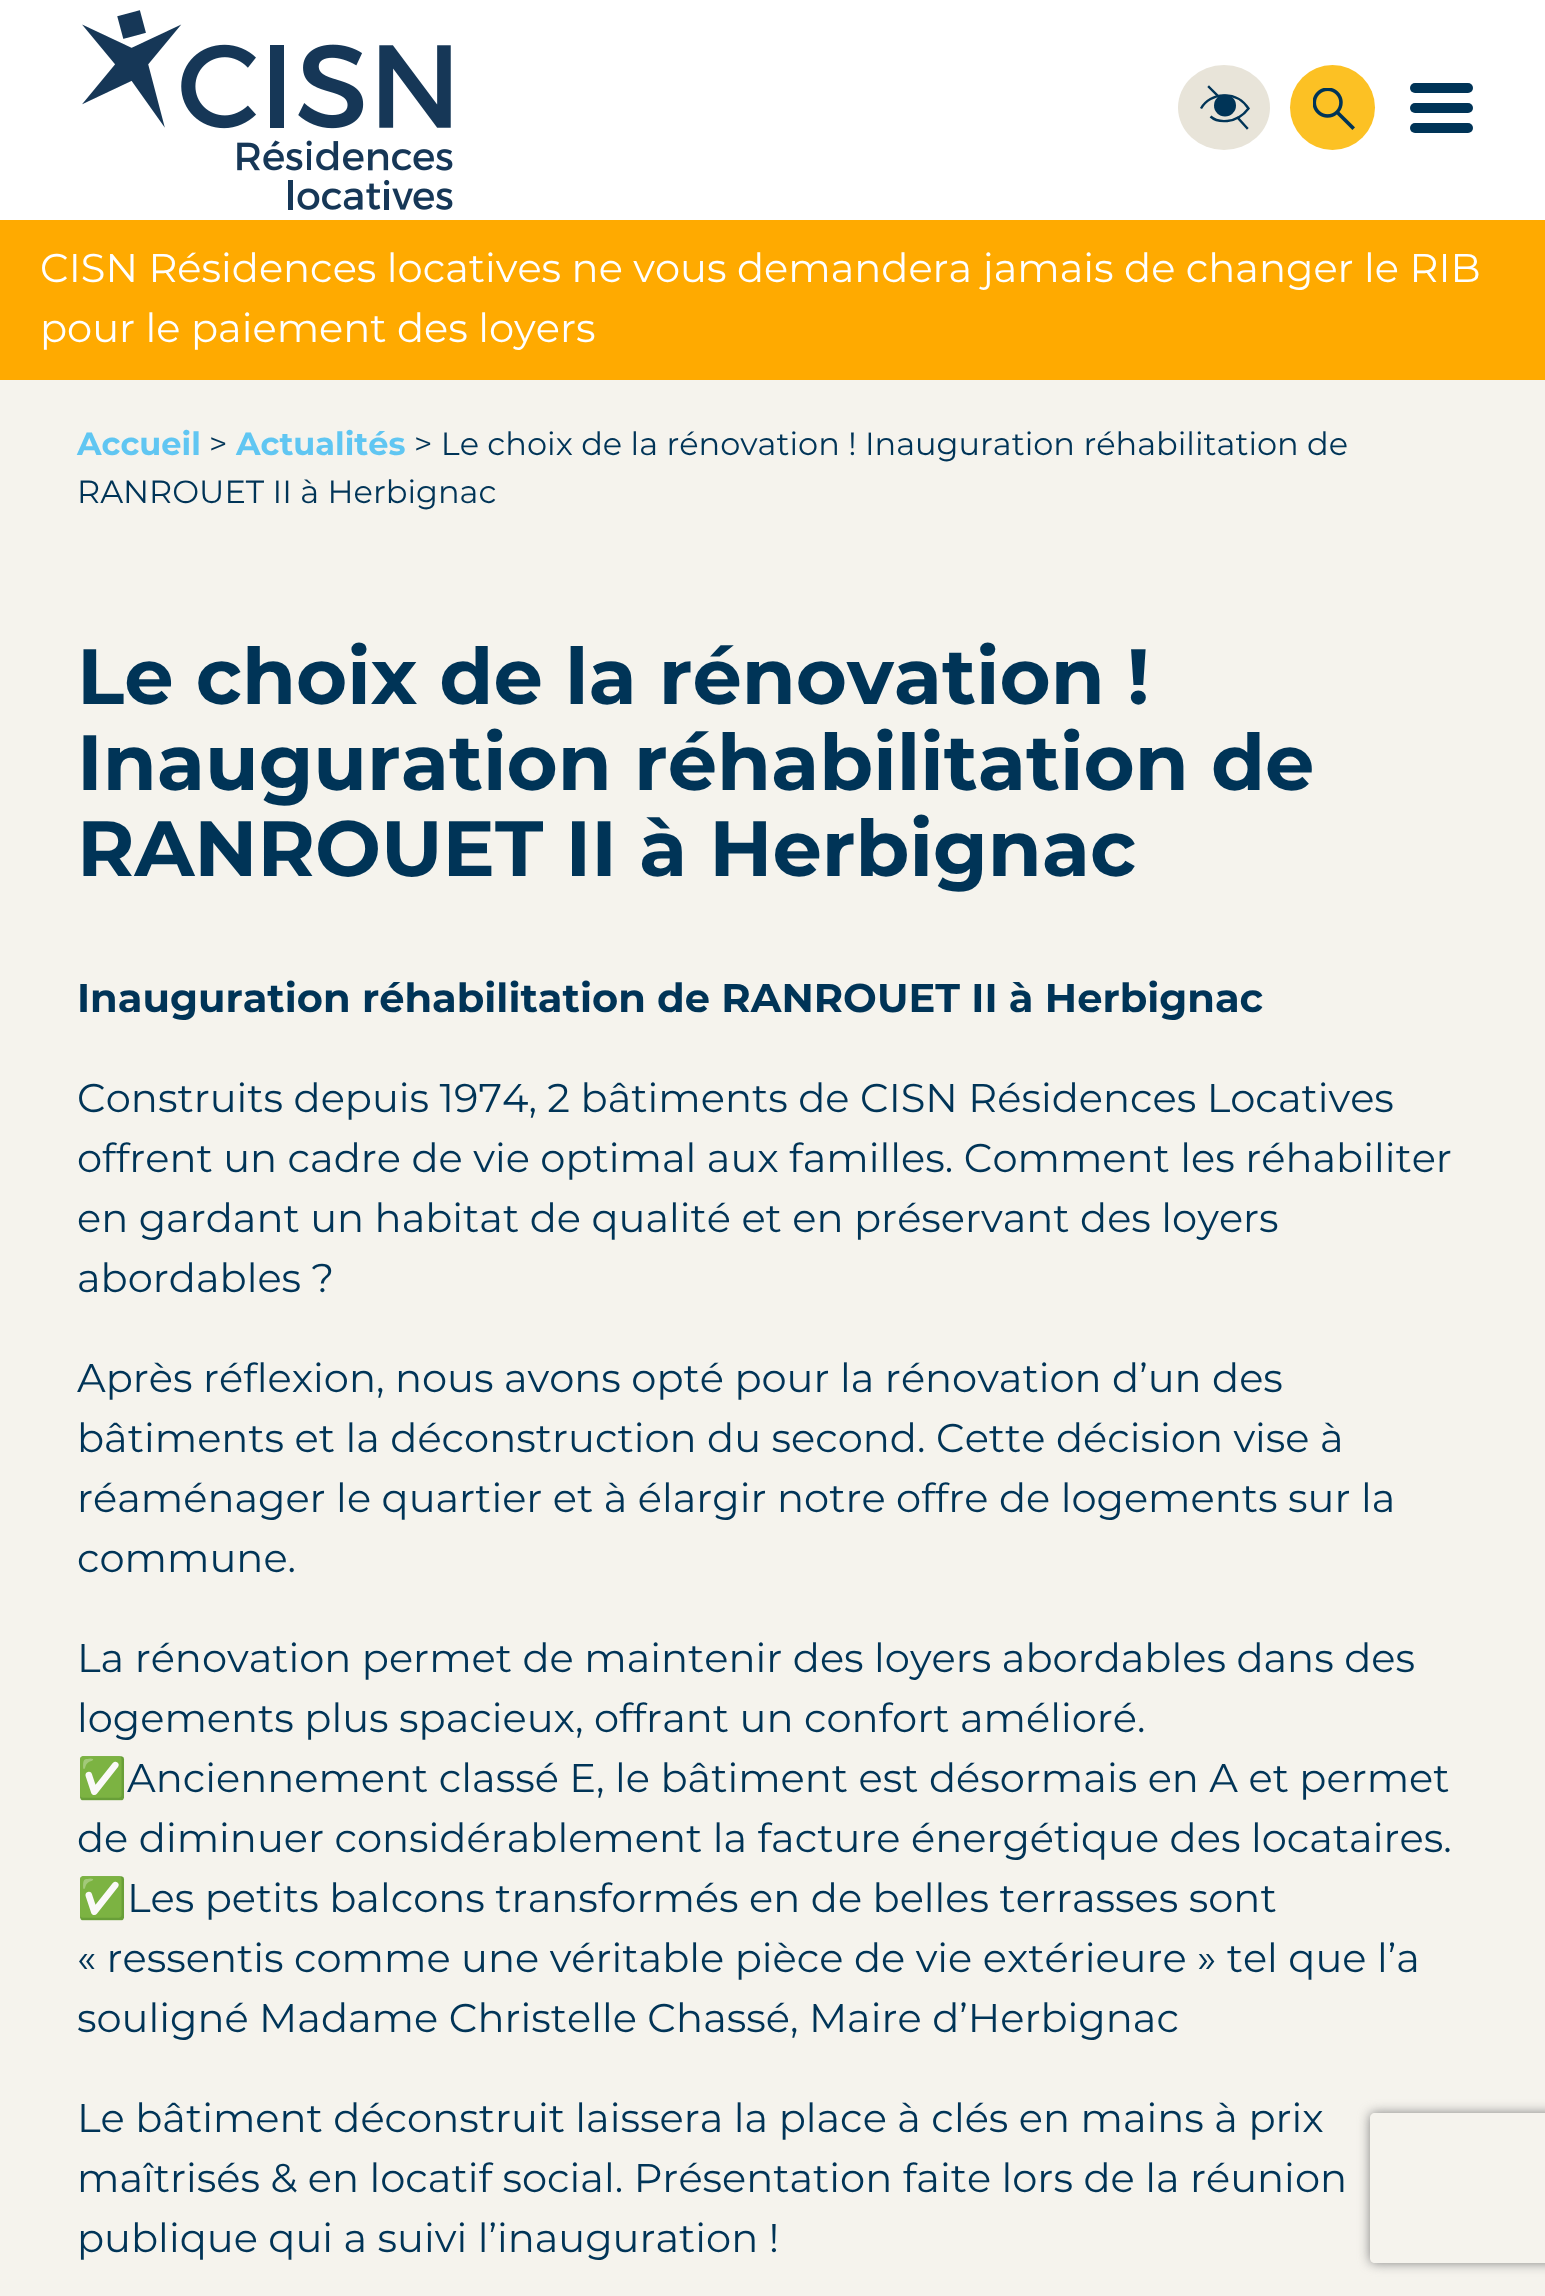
<!DOCTYPE html>
<meta charset="utf-8">
<style>body { margin: 0 } canvas { display: block }</style>
<canvas id="canvas" width="1545" height="2296"></canvas>
<script type="module">
  const canvas = document.getElementById("canvas");
  const g = canvas.getContext("2d");
  g.miterLimit = 4;
  g.fontKerning = "none";
  function drawText(s, x, y, [font, color]) {
    g.font = font;
    g.fillStyle = color;
    g.fillText(s, x, y);
  }
  function fillBox(x, y, w, h, color) {
    g.fillStyle = color;
    g.fillRect(x, y, w, h);
  }
  function fillRounded(x, y, w, h, r, color) {
    g.fillStyle = color;
    g.beginPath();
    g.roundRect(x, y, w, h, r);
    g.fill();
  }
  async function drawPicture(src, x, y, w, h) {
    const img = new Image();
    img.src = src;
    await img.decode();
    g.drawImage(img, x, y, w, h);
  }

  const s1 = ["40px Montserrat", "#FFFFFF"];
  const s2 = ["bold 32px Montserrat", "#60C6F2"];
  const s3 = ["32px Montserrat", "#003457"];
  const s4 = ["bold 78.2px Montserrat", "#003457"];
  const s5 = ["bold 40px Montserrat", "#003457"];
  const s6 = ["40px Montserrat", "#003457"];
  const s7 = ["40px Noto Color Emoji", "#003457"];

  fillBox(0, 0, 1545, 2296, "#F5F3ED");
  fillBox(0, 0, 1545, 220, "#FFFFFF");
  await drawPicture("pic1.png", 82, 10, 371, 200);
  g.fillStyle = "#E8E4D9";
  g.beginPath();
  g.ellipse(1224, 107.5, 46, 42.5, 0, 0, Math.PI * 2);
  g.fill();
  g.beginPath();
  g.moveTo(1201, 108.5);
  g.bezierCurveTo(1210, 92.5, 1236, 89.5, 1248.5, 108.5);
  g.bezierCurveTo(1236, 125, 1217, 122.5, 1210.5, 116.5);
  g.strokeStyle = "#003457";
  g.lineWidth = 2.4;
  g.stroke();
  g.fillStyle = "#003457";
  g.beginPath();
  g.arc(1225, 105.5, 11, 0, Math.PI * 2);
  g.fill();
  g.beginPath();
  g.moveTo(1238, 118);
  g.lineTo(1247, 128);
  g.moveTo(1209, 87);
  g.lineTo(1218.5, 96.5);
  g.lineCap = "square";
  g.stroke();
  g.fillStyle = "#FCC124";
  g.beginPath();
  g.arc(1332.5, 107.5, 42.5, 0, Math.PI * 2);
  g.fill();
  await drawPicture("pic2.png", 1313, 88, 42, 42);
  fillRounded(1410, 83, 63, 10, 5, "#003457");
  fillRounded(1410, 103, 63, 10, 5, "#003457");
  fillRounded(1410, 123, 63, 10, 5, "#003457");
  fillBox(0, 220, 1545, 160, "#FFAA00");
  drawText("CISN Résidences locatives ne vous demandera jamais de changer le RIB", 40, 282, s1);
  drawText("pour le paiement des loyers", 40, 342, s1);
  drawText("Accueil", 77, 455, s2);
  drawText(">", 209, 455, s3);
  drawText("Actualités", 236, 455, s2);
  drawText("> Le choix de la rénovation ! Inauguration réhabilitation de", 414, 455, s3);
  drawText("RANROUET II à Herbignac", 77, 503, s3);
  drawText("Le choix de la rénovation !", 77, 704, s4);
  drawText("Inauguration réhabilitation de", 77, 790, s4);
  drawText("RANROUET II à Herbignac", 77, 876, s4);
  drawText("Inauguration réhabilitation de RANROUET II à Herbignac", 77, 1012, s5);
  drawText("Construits depuis 1974, 2 bâtiments de CISN Résidences Locatives", 77, 1112, s6);
  drawText("offrent un cadre de vie optimal aux familles. Comment les réhabiliter", 77, 1172, s6);
  drawText("en gardant un habitat de qualité et en préservant des loyers", 77, 1232, s6);
  drawText("abordables ?", 77, 1292, s6);
  drawText("Après réflexion, nous avons opté pour la rénovation d’un des", 77, 1392, s6);
  drawText("bâtiments et la déconstruction du second. Cette décision vise à", 77, 1452, s6);
  drawText("réaménager le quartier et à élargir notre offre de logements sur la", 77, 1512, s6);
  drawText("commune.", 77, 1572, s6);
  drawText("La rénovation permet de maintenir des loyers abordables dans des", 77, 1672, s6);
  drawText("logements plus spacieux, offrant un confort amélioré.", 77, 1732, s6);
  drawText("✅", 77, 1792, s7);
  drawText("Anciennement classé E, le bâtiment est désormais en A et permet", 127, 1792, s6);
  drawText("de diminuer considérablement la facture énergétique des locataires.", 77, 1852, s6);
  drawText("✅", 77, 1912, s7);
  drawText("Les petits balcons transformés en de belles terrasses sont", 127, 1912, s6);
  drawText("« ressentis comme une véritable pièce de vie extérieure » tel que l’a", 77, 1972, s6);
  drawText("souligné Madame Christelle Chassé, Maire d’Herbignac", 77, 2032, s6);
  drawText("Le bâtiment déconstruit laissera la place à clés en mains à prix", 77, 2132, s6);
  drawText("maîtrisés & en locatif social. Présentation faite lors de la réunion", 77, 2192, s6);
  drawText("publique qui a suivi l’inauguration !", 77, 2252, s6);
  g.save();
  g.beginPath();
  g.moveTo(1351, 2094);
  g.lineTo(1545, 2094);
  g.lineTo(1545, 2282);
  g.lineTo(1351, 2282);
  g.closePath();
  g.moveTo(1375, 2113);
  g.lineTo(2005, 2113);
  g.bezierCurveTo(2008, 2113, 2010, 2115, 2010, 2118);
  g.lineTo(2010, 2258);
  g.bezierCurveTo(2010, 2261, 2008, 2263, 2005, 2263);
  g.lineTo(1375, 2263);
  g.bezierCurveTo(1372, 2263, 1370, 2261, 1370, 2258);
  g.lineTo(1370, 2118);
  g.bezierCurveTo(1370, 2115, 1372, 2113, 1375, 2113);
  g.closePath();
  g.clip("evenodd");
  g.fillStyle = "#808080";
  g.filter = "blur(6px)";
  g.beginPath();
  g.roundRect(1370, 2113, 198, 150, 5);
  g.fill();
  g.filter = "none";
  g.restore();
</script>
